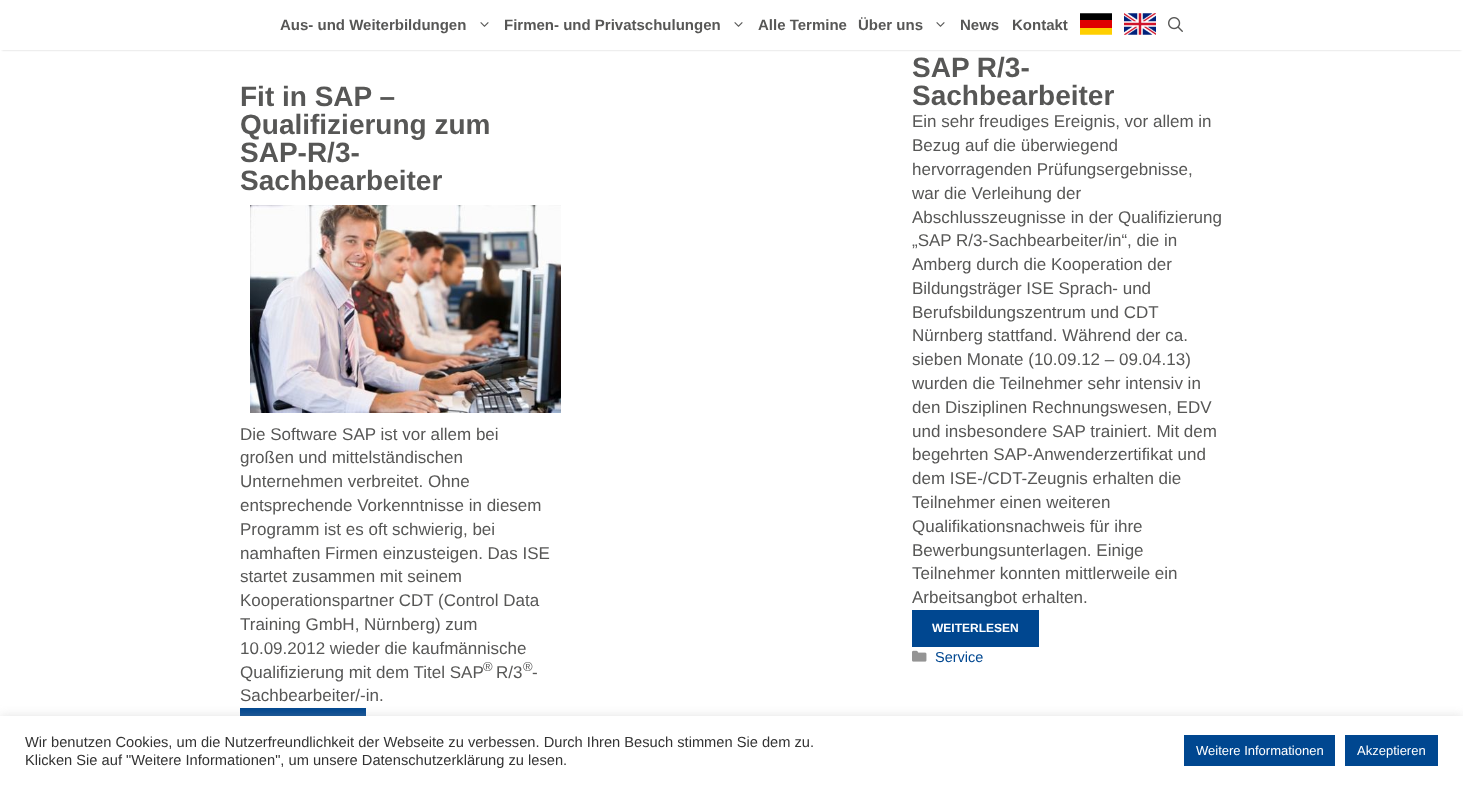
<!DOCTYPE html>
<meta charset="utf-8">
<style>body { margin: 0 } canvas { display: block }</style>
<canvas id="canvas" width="1463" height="785"></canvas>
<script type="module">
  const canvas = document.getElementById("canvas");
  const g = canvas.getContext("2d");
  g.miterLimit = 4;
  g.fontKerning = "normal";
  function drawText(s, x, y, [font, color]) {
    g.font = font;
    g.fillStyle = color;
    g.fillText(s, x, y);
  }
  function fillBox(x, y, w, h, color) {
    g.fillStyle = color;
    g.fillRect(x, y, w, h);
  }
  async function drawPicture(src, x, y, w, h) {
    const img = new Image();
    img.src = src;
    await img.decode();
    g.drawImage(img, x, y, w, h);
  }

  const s1 = ["bold 15px Liberation Sans", "#575756"];
  const s2 = ["bold 28px Liberation Sans", "#575756"];
  const s3 = ["17px Liberation Sans", "#575756"];
  const s4 = ["13px Liberation Sans", "#575756"];
  const s5 = ["bold 12px Liberation Sans", "#FFFFFF"];
  const s6 = ["14.5px Liberation Sans", "#004790"];
  const s7 = ["14.67px Liberation Sans", "#333333"];
  const s8 = ["13px Liberation Sans", "#FFFFFF"];

  fillBox(0, 0, 1463, 785, "#FFFFFF");
  g.fillStyle = "rgba(0, 0, 0, 0.2)";
  g.filter = "blur(1px)";
  g.beginPath();
  g.rect(2, 4, 1459, 46);
  g.fill();
  g.filter = "none";
  fillBox(0, 2, 1463, 48, "#FFFFFF");
  drawText("Aus- und Weiterbildungen", 280, 30, s1);
  await drawPicture("pic1.png", 480, 22, 9, 5);
  drawText("Firmen- und Privatschulungen", 504, 30, s1);
  await drawPicture("pic1.png", 734, 22, 9, 5);
  drawText("Alle Termine", 758, 30, s1);
  drawText("Über uns", 858, 30, s1);
  await drawPicture("pic1.png", 936, 22, 9, 5);
  drawText("News", 960, 30, s1);
  drawText("Kontakt", 1012, 30, s1);
  await drawPicture("pic2.png", 1080, 13, 32, 22);
  await drawPicture("pic3.png", 1124, 13, 32, 22);
  await drawPicture("pic4.png", 1168, 17, 15, 15);
  drawText("Fit in SAP –", 240, 106, s2);
  drawText("Qualifizierung zum", 240, 134, s2);
  drawText("SAP-R/3-", 240, 162, s2);
  drawText("Sachbearbeiter", 240, 190, s2);
  await drawPicture("pic5.png", 250, 205, 311, 208);
  drawText("Die Software SAP ist vor allem bei", 240, 440, s3);
  drawText("großen und mittelständischen", 240, 463, s3);
  drawText("Unternehmen verbreitet. Ohne", 240, 487, s3);
  drawText("entsprechende Vorkenntnisse in diesem", 240, 511, s3);
  drawText("Programm ist es oft schwierig, bei", 240, 535, s3);
  drawText("namhaften Firmen einzusteigen. Das ISE", 240, 559, s3);
  drawText("startet zusammen mit seinem", 240, 582, s3);
  drawText("Kooperationspartner CDT (Control Data", 240, 606, s3);
  drawText("Training GmbH, Nürnberg) zum", 240, 630, s3);
  drawText("10.09.2012 wieder die kaufmännische", 240, 654, s3);
  drawText("Qualifizierung mit dem Titel SAP", 240, 678, s3);
  drawText("®", 483, 671, s4);
  drawText("R/3", 496, 678, s3);
  drawText("®", 523, 671, s4);
  drawText("-", 532, 678, s3);
  drawText("Sachbearbeiter/-in.", 240, 701, s3);
  fillBox(240, 708, 126, 8, "#004790");
  drawText("SAP R/3-", 912, 77, s2);
  drawText("Sachbearbeiter", 912, 105, s2);
  drawText("Ein sehr freudiges Ereignis, vor allem in", 912, 127, s3);
  drawText("Bezug auf die überwiegend", 912, 151, s3);
  drawText("hervorragenden Prüfungsergebnisse,", 912, 175, s3);
  drawText("war die Verleihung der", 912, 199, s3);
  drawText("Abschlusszeugnisse in der Qualifizierung", 912, 223, s3);
  drawText("„SAP R/3-Sachbearbeiter/in“, die in", 912, 246, s3);
  drawText("Amberg durch die Kooperation der", 912, 270, s3);
  drawText("Bildungsträger ISE Sprach- und", 912, 294, s3);
  drawText("Berufsbildungszentrum und CDT", 912, 318, s3);
  drawText("Nürnberg stattfand. Während der ca.", 912, 341, s3);
  drawText("sieben Monate (10.09.12 – 09.04.13)", 912, 365, s3);
  drawText("wurden die Teilnehmer sehr intensiv in", 912, 389, s3);
  drawText("den Disziplinen Rechnungswesen, EDV", 912, 413, s3);
  drawText("und insbesondere SAP trainiert. Mit dem", 912, 437, s3);
  drawText("begehrten SAP-Anwenderzertifikat und", 912, 460, s3);
  drawText("dem ISE-/CDT-Zeugnis erhalten die", 912, 484, s3);
  drawText("Teilnehmer einen weiteren", 912, 508, s3);
  drawText("Qualifikationsnachweis für ihre", 912, 532, s3);
  drawText("Bewerbungsunterlagen. Einige", 912, 556, s3);
  drawText("Teilnehmer konnten mittlerweile ein", 912, 579, s3);
  drawText("Arbeitsangbot erhalten.", 912, 603, s3);
  fillBox(912, 610, 127, 37, "#004790");
  drawText("WEITERLESEN", 932, 632, s5);
  await drawPicture("pic6.png", 912, 650, 15, 12);
  drawText("Service", 935, 662, s6);
  g.fillStyle = "rgba(172, 171, 171, 0.3)";
  g.filter = "blur(5px)";
  g.beginPath();
  g.rect(0, 715, 1463, 69);
  g.fill();
  g.filter = "none";
  fillBox(0, 716, 1463, 69, "#FFFFFF");
  drawText("Wir benutzen Cookies, um die Nutzerfreundlichkeit der Webseite zu verbessen. Durch Ihren Besuch stimmen Sie dem zu.", 25, 747, s7);
  drawText("Klicken Sie auf \"Weitere Informationen\", um unsere Datenschutzerklärung zu lesen.", 25, 765, s7);
  fillBox(1184, 735, 151, 31, "#004790");
  drawText("Weitere Informationen", 1196, 755, s8);
  fillBox(1345, 735, 93, 31, "#004790");
  drawText("Akzeptieren", 1357, 755, s8);
</script>
